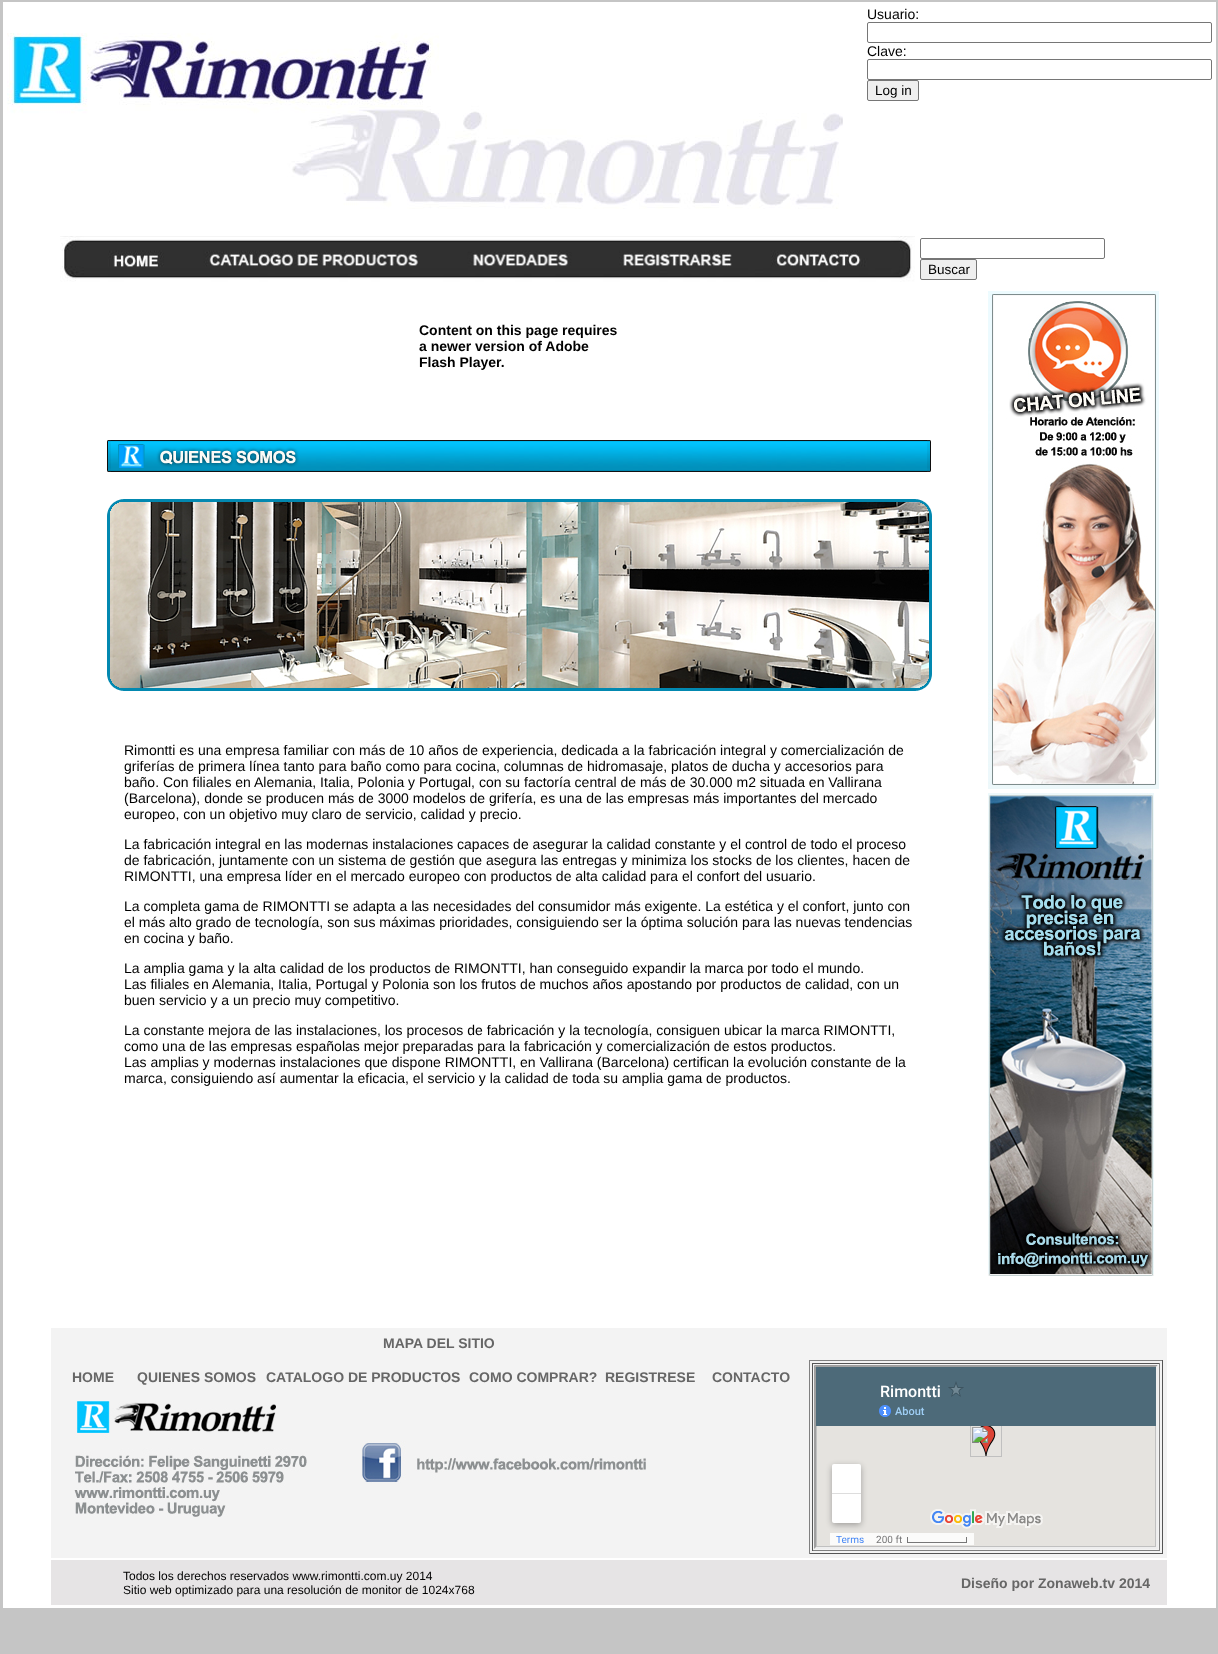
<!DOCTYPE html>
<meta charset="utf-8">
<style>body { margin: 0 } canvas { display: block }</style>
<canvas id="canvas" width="1218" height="1654"></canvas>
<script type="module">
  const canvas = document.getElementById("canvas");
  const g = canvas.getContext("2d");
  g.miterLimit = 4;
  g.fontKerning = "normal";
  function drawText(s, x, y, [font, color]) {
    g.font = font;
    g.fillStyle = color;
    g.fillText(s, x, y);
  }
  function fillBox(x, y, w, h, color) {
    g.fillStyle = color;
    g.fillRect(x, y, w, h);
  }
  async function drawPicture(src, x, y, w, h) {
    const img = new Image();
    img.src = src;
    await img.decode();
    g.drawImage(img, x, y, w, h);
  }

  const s1 = ["14px Liberation Sans", "#000000"];
  const s2 = ["13.5px Liberation Sans", "#000000"];
  const s3 = ["bold 14px Liberation Sans", "#000000"];
  const s4 = ["bold 14px Liberation Sans", "#666666"];
  const s5 = ["12px Liberation Sans", "#000000"];

  fillBox(0, 0, 1218, 1654, "#FFFFFF");
  await drawPicture("pic1.png", 0, 0, 1218, 1654);
  fillBox(3, 2, 1213, 1606, "#FFFFFF");
  await drawPicture("pic2.png", 7, 33, 836, 176);
  drawText("Usuario:", 867, 19, s1);
  g.beginPath();
  g.roundRect(867.5, 22.5, 344, 20, 1.5);
  g.strokeStyle = "#767676";
  g.stroke();
  drawText("Clave:", 867, 56, s1);
  g.beginPath();
  g.roundRect(867.5, 59.5, 344, 20, 1.5);
  g.stroke();
  g.fillStyle = "#EFEFEF";
  g.beginPath();
  g.roundRect(867.5, 80.5, 51, 20, 1.5);
  g.fill();
  g.stroke();
  drawText("Log in", 875, 95, s2);
  await drawPicture("pic3.png", 60, 236, 855, 46);
  g.beginPath();
  g.roundRect(920.5, 238.5, 184, 20, 1.5);
  g.stroke();
  g.fillStyle = "#EFEFEF";
  g.beginPath();
  g.roundRect(920.5, 259.5, 56, 20, 1.5);
  g.fill();
  g.stroke();
  drawText("Buscar", 928, 274, s2);
  drawText("Content on this page requires", 419, 335, s3);
  drawText("a newer version of Adobe", 419, 351, s3);
  drawText("Flash Player.", 419, 367, s3);
  await drawPicture("pic4.png", 107, 440, 824, 32);
  await drawPicture("pic5.png", 107, 499, 825, 192);
  drawText("Rimontti es una empresa familiar con más de 10 años de experiencia, dedicada a la fabricación integral y comercialización de", 124, 755, s1);
  drawText("griferías de primera línea tanto para baño como para cocina, columnas de hidromasaje, platos de ducha y accesorios para", 124, 771, s1);
  drawText("baño. Con filiales en Alemania, Italia, Polonia y Portugal, con su factoría central de más de 30.000 m2 situada en Vallirana", 124, 787, s1);
  drawText("(Barcelona), donde se producen más de 3000 modelos de grifería, es una de las empresas más importantes del mercado", 124, 803, s1);
  drawText("europeo, con un objetivo muy claro de servicio, calidad y precio.", 124, 819, s1);
  drawText("La fabricación integral en las modernas instalaciones capaces de asegurar la calidad constante y el control de todo el proceso", 124, 849, s1);
  drawText("de fabricación, juntamente con un sistema de gestión que asegura las entregas y minimiza los stocks de los clientes, hacen de", 124, 865, s1);
  drawText("RIMONTTI, una empresa líder en el mercado europeo con productos de alta calidad para el confort del usuario.", 124, 881, s1);
  drawText("La completa gama de RIMONTTI se adapta a las necesidades del consumidor más exigente. La estética y el confort, junto con", 124, 911, s1);
  drawText("el más alto grado de tecnología, son sus máximas prioridades, consiguiendo ser la óptima solución para las nuevas tendencias", 124, 927, s1);
  drawText("en cocina y baño.", 124, 943, s1);
  drawText("La amplia gama y la alta calidad de los productos de RIMONTTI, han conseguido expandir la marca por todo el mundo.", 124, 973, s1);
  drawText("Las filiales en Alemania, Italia, Portugal y Polonia son los frutos de muchos años apostando por productos de calidad, con un", 124, 989, s1);
  drawText("buen servicio y a un precio muy competitivo.", 124, 1005, s1);
  drawText("La constante mejora de las instalaciones, los procesos de fabricación y la tecnología, consiguen ubicar la marca RIMONTTI,", 124, 1035, s1);
  drawText("como una de las empresas españolas mejor preparadas para la fabricación y comercialización de estos productos.", 124, 1051, s1);
  drawText("Las amplias y modernas instalaciones que dispone RIMONTTI, en Vallirana (Barcelona) certifican la evolución constante de la", 124, 1067, s1);
  drawText("marca, consiguiendo así aumentar la eficacia, el servicio y la calidad de toda su amplia gama de productos.", 124, 1083, s1);
  await drawPicture("pic6.png", 988, 291, 171, 498);
  await drawPicture("pic7.png", 988, 793, 166, 483);
  fillBox(51, 1328, 1116, 230, "#F3F3F3");
  drawText("MAPA DEL SITIO", 383, 1348, s4);
  drawText("HOME", 72, 1382, s4);
  drawText("QUIENES SOMOS", 137, 1382, s4);
  drawText("CATALOGO DE PRODUCTOS", 266, 1382, s4);
  drawText("COMO COMPRAR?", 469, 1382, s4);
  drawText("REGISTRESE", 605, 1382, s4);
  drawText("CONTACTO", 712, 1382, s4);
  await drawPicture("pic8.png", 74, 1401, 233, 116);
  await drawPicture("pic9.png", 362, 1441, 284, 42);
  fillBox(809, 1360, 354, 1, "#808080");
  fillBox(1162, 1360, 1, 194, "#555555");
  fillBox(809, 1553, 354, 1, "#555555");
  fillBox(809, 1360, 1, 194, "#808080");
  fillBox(812, 1363, 348, 1, "#555555");
  fillBox(1159, 1363, 1, 188, "#808080");
  fillBox(812, 1550, 348, 1, "#808080");
  fillBox(812, 1363, 1, 188, "#555555");
  g.fillStyle = "#9F9F9F";
  g.beginPath();
  g.moveTo(814, 1365);
  g.lineTo(1158, 1365);
  g.lineTo(1156, 1367);
  g.lineTo(816, 1367);
  g.closePath();
  g.fill();
  g.fillStyle = "#EEEEEE";
  g.beginPath();
  g.moveTo(1158, 1365);
  g.lineTo(1158, 1549);
  g.lineTo(1156, 1547);
  g.lineTo(1156, 1367);
  g.closePath();
  g.fill();
  g.beginPath();
  g.moveTo(1158, 1549);
  g.lineTo(814, 1549);
  g.lineTo(816, 1547);
  g.lineTo(1156, 1547);
  g.closePath();
  g.fill();
  g.fillStyle = "#9F9F9F";
  g.beginPath();
  g.moveTo(814, 1549);
  g.lineTo(814, 1365);
  g.lineTo(816, 1367);
  g.lineTo(816, 1547);
  g.closePath();
  g.fill();
  await drawPicture("pic10.png", 816, 1367, 340, 180);
  fillBox(51, 1560, 1116, 45, "#E6E4E5");
  drawText("Todos los derechos reservados www.rimontti.com.uy 2014", 123, 1580, s5);
  drawText("Sitio web optimizado para una resolución de monitor de 1024x768", 123, 1594, s5);
  drawText("Diseño por Zonaweb.tv 2014", 961, 1588, s4);
</script>
